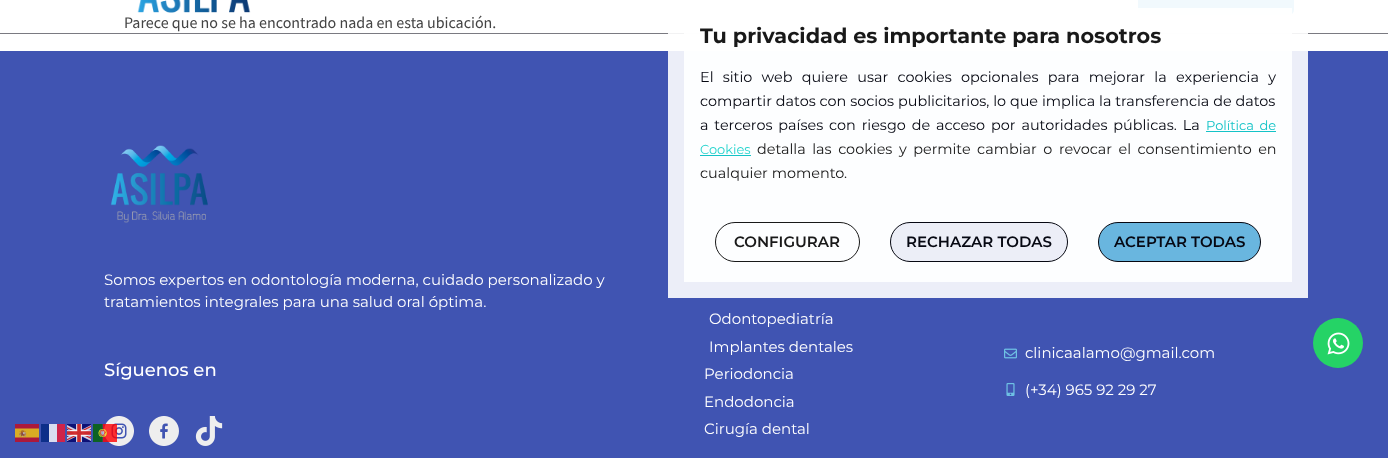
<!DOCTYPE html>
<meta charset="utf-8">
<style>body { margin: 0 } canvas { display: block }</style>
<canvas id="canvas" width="1388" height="458"></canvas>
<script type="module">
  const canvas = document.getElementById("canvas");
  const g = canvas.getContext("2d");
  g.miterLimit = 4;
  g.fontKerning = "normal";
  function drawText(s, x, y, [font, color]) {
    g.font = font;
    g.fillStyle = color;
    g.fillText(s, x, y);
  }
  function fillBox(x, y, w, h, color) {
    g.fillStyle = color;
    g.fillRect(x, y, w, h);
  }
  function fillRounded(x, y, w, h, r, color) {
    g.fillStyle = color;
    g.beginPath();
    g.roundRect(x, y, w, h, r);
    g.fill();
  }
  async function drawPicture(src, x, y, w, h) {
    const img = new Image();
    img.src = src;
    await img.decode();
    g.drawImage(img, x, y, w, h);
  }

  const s1 = ["16px Source Sans Pro", "#444444"];
  const s2 = ["bold 20.8px Montserrat", "#191919"];
  const s3 = ["14.4px Montserrat", "#060812"];
  const s4 = ["13px Montserrat", "#14C3C7"];
  const s5 = ["13px Montserrat", "#27D4CE"];
  const s6 = ["14.4px Montserrat", "#191919"];
  const s7 = ["600 15px Montserrat", "#191919"];
  const s8 = ["600 15px Montserrat", "#060812"];
  const s9 = ["15px Montserrat", "#FFFFFF"];
  const s10 = ["500 18px Montserrat", "#FFFFFF"];

  fillBox(0, 0, 1388, 458, "#FFFFFF");
  fillBox(0, 33, 1388, 1, "#7A7A81");
  await drawPicture("pic1.png", 137, 0, 114, 13);
  fillRounded(1138, -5, 156, 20, 5, "#6EC1E4");
  drawText("Parece que no se ha encontrado nada en esta ubicación.", 124, 28, s1);
  fillBox(0, 51, 1388, 407, "#4054B2");
  fillBox(668, 0, 640, 298, "rgba(255, 255, 255, 0.9)");
  fillBox(684, 8, 608, 274, "rgba(255, 255, 255, 0.9)");
  drawText("Tu privacidad es importante para nosotros", 700, 43, s2);
  g.wordSpacing = "5.5px";
  drawText("El sitio web quiere usar cookies opcionales para mejorar la experiencia y", 700, 82, s3);
  g.wordSpacing = "0.1px";
  drawText("compartir datos con socios publicitarios, lo que implica la transferencia de datos", 700, 106, s3);
  g.wordSpacing = "2.1px";
  drawText("a terceros países con riesgo de acceso por autoridades públicas. La", 700, 130, s3);
  drawText("Política de", 1206, 130, s4);
  fillBox(1206, 131, 70, 1, "#14C3C7");
  g.wordSpacing = "0px";
  drawText("Cookies", 700, 154, s5);
  fillBox(700, 155, 51, 1, "#14C3C7");
  g.wordSpacing = "2.75px";
  drawText("detalla las cookies y permite cambiar o revocar el consentimiento en", 757, 154, s6);
  g.wordSpacing = "0px";
  drawText("cualquier momento.", 700, 178, s6);
  g.beginPath();
  g.roundRect(715.5, 222.5, 144, 39, 19.5);
  g.strokeStyle = "#191919";
  g.stroke();
  drawText("CONFIGURAR", 734, 247, s7);
  g.fillStyle = "#ECEEF7";
  g.beginPath();
  g.roundRect(890.5, 222.5, 177, 39, 19.5);
  g.fill();
  g.strokeStyle = "#060812";
  g.stroke();
  drawText("RECHAZAR TODAS", 906, 247, s8);
  g.fillStyle = "#69B6DF";
  g.beginPath();
  g.roundRect(1098.5, 222.5, 162, 39, 19.5);
  g.fill();
  g.stroke();
  drawText("ACEPTAR TODAS", 1114, 247, s8);
  await drawPicture("pic2.png", 15, 424, 24, 18);
  fillBox(41, 424, 8, 18, "#0D2F89");
  fillBox(49, 424, 8, 18, "#D9DDF0");
  fillBox(57, 424, 8, 18, "#CF244A");
  await drawPicture("pic3.png", 67, 424, 24, 18);
  await drawPicture("pic6.png", 104, 416, 30, 30);
  await drawPicture("pic4.png", 93, 424, 24, 18);
  await drawPicture("pic5.png", 110, 145, 98, 78);
  drawText("Somos expertos en odontología moderna, cuidado personalizado y", 104, 285, s9);
  drawText("tratamientos integrales para una salud oral óptima.", 104, 307, s9);
  drawText("Síguenos en", 104, 376, s10);
  await drawPicture("pic7.png", 149, 416, 30, 30);
  await drawPicture("pic8.png", 195, 416, 28, 30);
  drawText("Odontopediatría", 709, 324, s9);
  drawText("Implantes dentales", 709, 352, s9);
  drawText("Periodoncia", 704, 379, s9);
  drawText("Endodoncia", 704, 407, s9);
  drawText("Cirugía dental", 704, 434, s9);
  await drawPicture("pic9.png", 1004, 348, 13, 11);
  drawText("clinicaalamo@gmail.com", 1025, 358, s9);
  await drawPicture("pic10.png", 1006, 383, 9, 13);
  drawText("(+34) 965 92 29 27", 1025, 395, s9);
  g.fillStyle = "#25D366";
  g.beginPath();
  g.arc(1338, 343, 25, 0, Math.PI * 2);
  g.fill();
  await drawPicture("pic11.png", 1327, 332, 23, 23);
</script>
